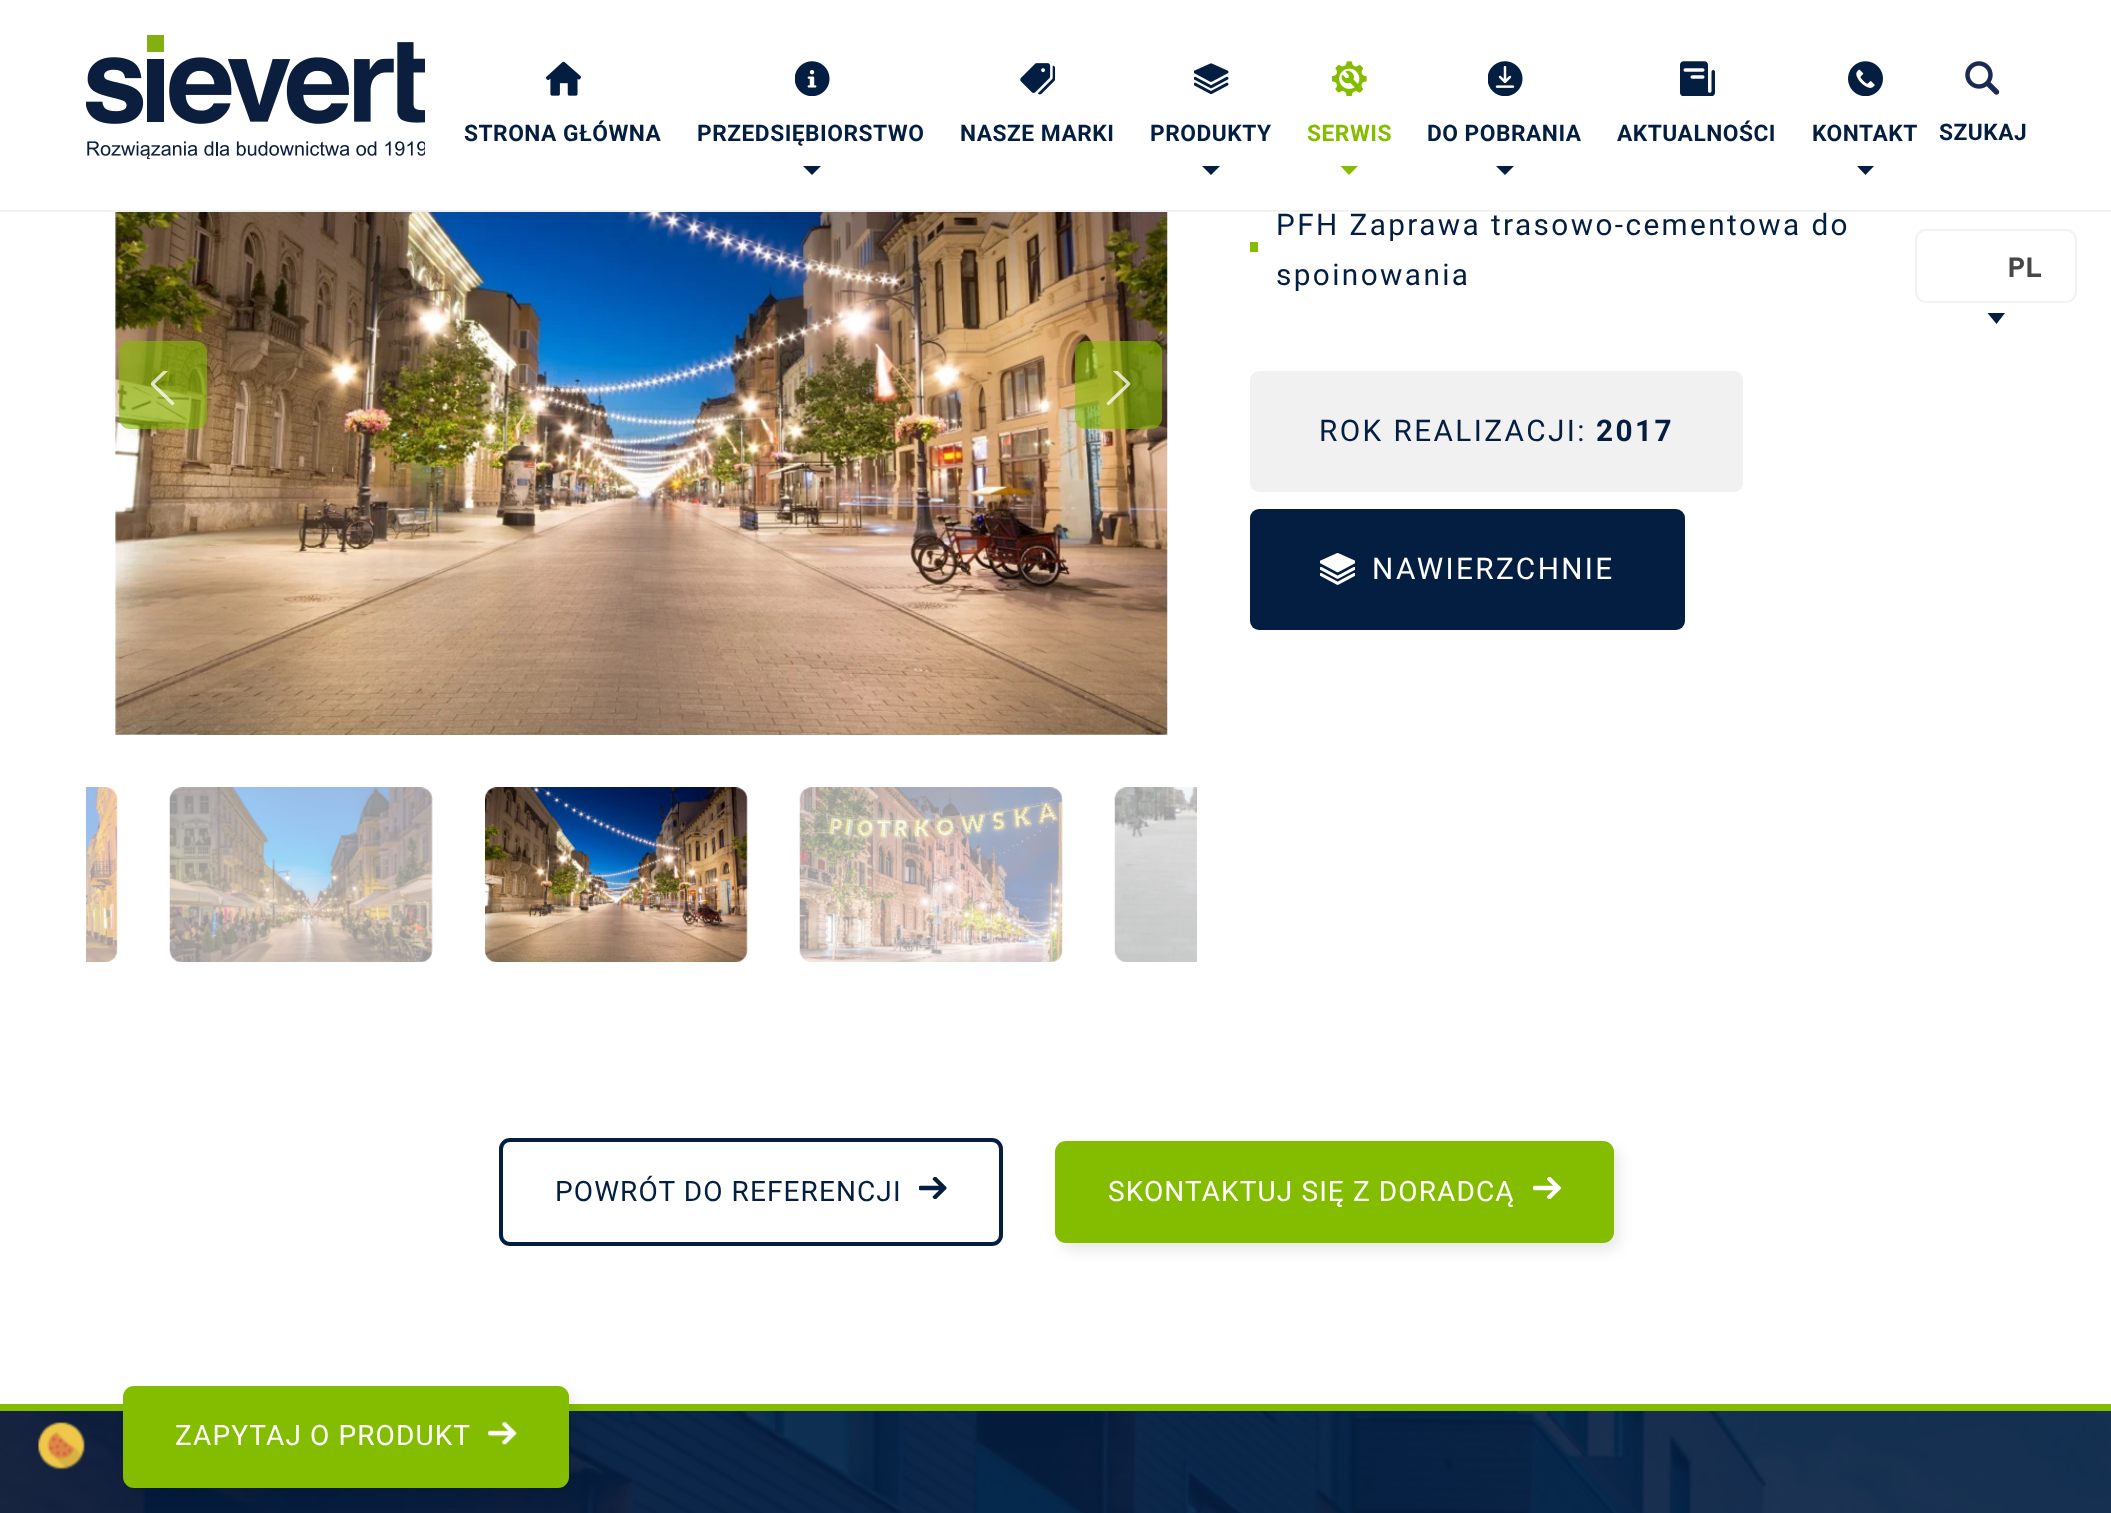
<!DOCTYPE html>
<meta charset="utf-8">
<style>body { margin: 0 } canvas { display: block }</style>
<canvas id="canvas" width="2111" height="1513"></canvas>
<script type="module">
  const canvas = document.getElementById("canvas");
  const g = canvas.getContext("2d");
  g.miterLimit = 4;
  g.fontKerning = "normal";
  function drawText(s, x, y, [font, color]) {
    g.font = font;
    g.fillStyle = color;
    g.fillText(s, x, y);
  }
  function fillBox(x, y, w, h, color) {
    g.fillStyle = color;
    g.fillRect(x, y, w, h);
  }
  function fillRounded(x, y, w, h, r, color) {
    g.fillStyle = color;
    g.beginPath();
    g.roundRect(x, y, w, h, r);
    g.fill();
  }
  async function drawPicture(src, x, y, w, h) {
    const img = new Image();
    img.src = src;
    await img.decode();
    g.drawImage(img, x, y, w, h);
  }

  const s1 = ["bold 22.75px Roboto", "#041E42"];
  const s2 = ["bold 22.75px Roboto", "#84BD00"];
  const s3 = ["29.75px Roboto", "#041E42"];
  const s4 = ["bold 29.75px Roboto", "#041E42"];
  const s5 = ["29.75px Roboto", "#FFFFFF"];
  const s6 = ["28px Roboto", "#041E42"];
  const s7 = ["28px Roboto", "#FFFFFF"];
  const s8 = ["bold 28px Barlow", "#474747"];

  fillBox(0, 0, 2111, 1513, "#FFFFFF");
  fillBox(0, 210, 2111, 2, "#F2F2F2");
  await drawPicture("pic1.png", 86, 35, 339, 124);
  await drawPicture("pic2.png", 546, 61, 35, 35);
  g.letterSpacing = "0.5px";
  drawText("STRONA GŁÓWNA", 464, 141, s1);
  await drawPicture("pic3.png", 795, 61, 35, 35);
  drawText("PRZEDSIĘBIORSTWO", 697, 141, s1);
  g.beginPath();
  g.moveTo(803, 166);
  g.lineTo(821, 166);
  g.lineTo(812, 175);
  g.closePath();
  g.fill();
  await drawPicture("pic4.png", 1020, 63, 35, 32);
  drawText("NASZE MARKI", 960, 141, s1);
  await drawPicture("pic5.png", 1194, 63, 35, 32);
  drawText("PRODUKTY", 1150, 141, s1);
  g.beginPath();
  g.moveTo(1202, 166);
  g.lineTo(1220, 166);
  g.lineTo(1211, 175);
  g.closePath();
  g.fill();
  await drawPicture("pic6.png", 1332, 61, 35, 35);
  drawText("SERWIS", 1307, 141, s2);
  g.beginPath();
  g.moveTo(1340.5, 166);
  g.lineTo(1358, 166);
  g.lineTo(1349, 175);
  g.closePath();
  g.fill();
  await drawPicture("pic7.png", 1488, 61, 35, 35);
  drawText("DO POBRANIA", 1427, 141, s1);
  g.beginPath();
  g.moveTo(1496, 166);
  g.lineTo(1514, 166);
  g.lineTo(1505, 175);
  g.closePath();
  g.fill();
  await drawPicture("pic8.png", 1680, 61, 35, 35);
  drawText("AKTUALNOŚCI", 1617, 141, s1);
  await drawPicture("pic9.png", 1848, 61, 35, 35);
  drawText("KONTAKT", 1812, 141, s1);
  g.beginPath();
  g.moveTo(1857, 166);
  g.lineTo(1874, 166);
  g.lineTo(1865.5, 175);
  g.closePath();
  g.fill();
  await drawPicture("pic10.png", 1965, 61, 35, 34);
  drawText("SZUKAJ", 1939, 140, s1);
  await drawPicture("pic11.png", 115, 212, 1053, 523);
  fillRounded(119, 341, 88, 88, 11, "rgba(132, 189, 0, 0.6)");
  await drawPicture("pic12.png", 151, 371, 24, 35);
  fillRounded(1075, 341, 87, 88, 11, "rgba(132, 189, 0, 0.6)");
  await drawPicture("pic13.png", 1106, 371, 25, 35);
  await drawPicture("pic14.png", 86, 787, 32, 175);
  await drawPicture("pic15.png", 169, 787, 264, 175);
  await drawPicture("pic16.png", 485, 787, 263, 175);
  await drawPicture("pic17.png", 799, 787, 264, 175);
  await drawPicture("pic18.png", 1114, 787, 83, 175);
  fillBox(1250, 242, 8, 10, "#84BD00");
  g.letterSpacing = "2.4px";
  drawText("PFH Zaprawa trasowo-cementowa do", 1276, 235, s3);
  drawText("spoinowania", 1276, 285, s3);
  fillRounded(1250, 371, 493, 121, 9, "#F1F1F1");
  drawText("ROK REALIZACJI:", 1319, 441, s3);
  drawText("2017", 1596, 441, s4);
  fillRounded(1250, 509, 435, 121, 9, "#041E42");
  await drawPicture("pic19.png", 1320, 553, 35, 32);
  drawText("NAWIERZCHNIE", 1372, 579, s5);
  g.beginPath();
  g.roundRect(501, 1140, 500, 104, 9);
  g.strokeStyle = "#041E42";
  g.lineWidth = 4;
  g.stroke();
  g.letterSpacing = "1.1px";
  drawText("POWRÓT DO REFERENCJI", 555, 1201, s6);
  await drawPicture("pic20.png", 919, 1177, 28, 22);
  g.fillStyle = "rgba(0, 0, 0, 0.09)";
  g.filter = "blur(7px)";
  g.beginPath();
  g.roundRect(1061, 1148, 558, 102, 11);
  g.fill();
  g.filter = "none";
  fillRounded(1055, 1141, 559, 102, 11, "#84BD00");
  drawText("SKONTAKTUJ SIĘ Z DORADCĄ", 1108, 1201, s7);
  await drawPicture("pic21.png", 1533, 1177, 28, 22);
  g.beginPath();
  g.roundRect(1916, 230, 160, 72, 10);
  g.strokeStyle = "#F2F2F2";
  g.lineWidth = 2;
  g.stroke();
  g.letterSpacing = "1px";
  drawText("PL", 2008, 277, s8);
  g.fillStyle = "#041E42";
  g.beginPath();
  g.moveTo(1996.5, 324);
  g.lineTo(1987.5, 313);
  g.lineTo(2005, 313);
  g.closePath();
  g.fill();
  await drawPicture("pic22.png", 0, 1411, 2111, 102);
  fillBox(0, 1404, 2111, 7, "#84BD00");
  await drawPicture("pic23.png", 38, 1422, 47, 48);
  g.fillStyle = "rgba(0, 0, 0, 0.09)";
  g.filter = "blur(7px)";
  g.beginPath();
  g.roundRect(128, 1393, 446, 102, 11);
  g.fill();
  g.filter = "none";
  fillRounded(123, 1386, 446, 102, 11, "#84BD00");
  g.letterSpacing = "1.1px";
  drawText("ZAPYTAJ O PRODUKT", 175, 1445, s7);
  await drawPicture("pic24.png", 488, 1422, 29, 23);
</script>
